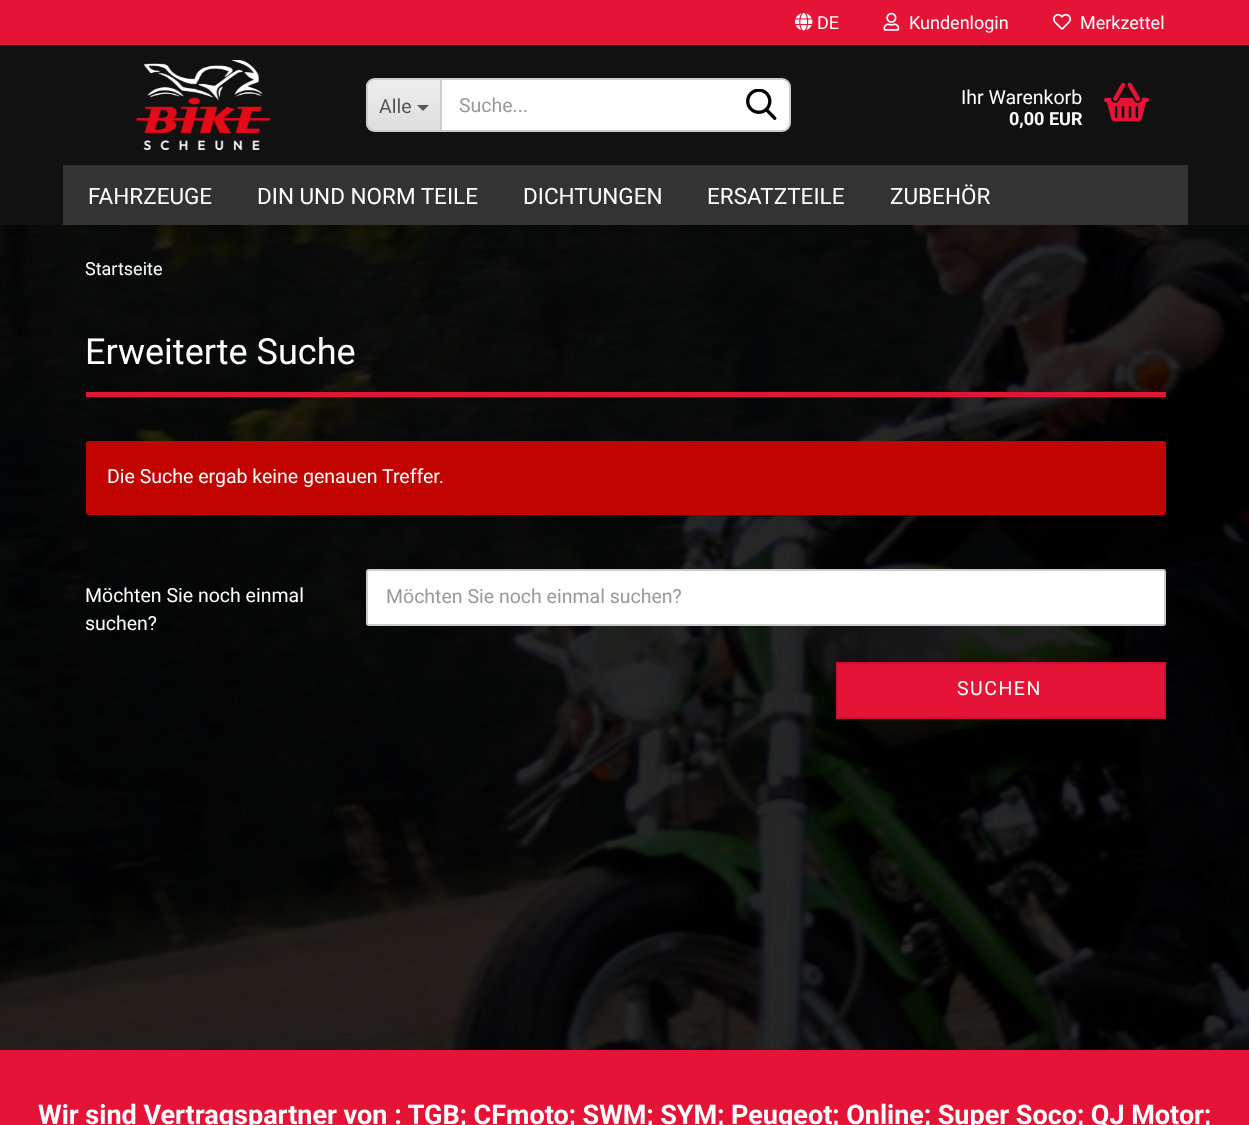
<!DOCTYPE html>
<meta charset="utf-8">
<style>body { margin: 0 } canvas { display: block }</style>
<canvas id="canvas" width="1249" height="1125"></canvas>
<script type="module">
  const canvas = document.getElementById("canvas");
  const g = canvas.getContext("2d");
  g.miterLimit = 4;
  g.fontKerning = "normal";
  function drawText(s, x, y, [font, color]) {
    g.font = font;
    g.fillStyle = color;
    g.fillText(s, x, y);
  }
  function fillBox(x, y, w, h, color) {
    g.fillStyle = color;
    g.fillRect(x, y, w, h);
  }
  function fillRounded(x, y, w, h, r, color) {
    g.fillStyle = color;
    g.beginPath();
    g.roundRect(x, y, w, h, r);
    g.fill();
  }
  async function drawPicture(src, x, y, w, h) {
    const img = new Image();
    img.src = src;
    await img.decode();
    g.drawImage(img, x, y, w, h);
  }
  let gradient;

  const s1 = ["18px Roboto", "#FFFFFF"];
  const s2 = ["19.5px Roboto", "#555555"];
  const s3 = ["19.5px Roboto", "#999999"];
  const s4 = ["19.5px Roboto", "#FFFFFF"];
  const s5 = ["bold 18px Roboto", "#FFFFFF"];
  const s6 = ["22.5px Roboto", "#FFFFFF"];
  const s7 = ["36px Roboto", "#FFFFFF"];
  const s8 = ["bold 27px Roboto", "#FFFFFF"];

  fillBox(0, 0, 1249, 1125, "#FFFFFF");
  await drawPicture("pic1.png", 0, 225, 1249, 825);
  fillBox(0, 225, 1249, 825, "rgba(0, 0, 0, 0.85)");
  fillBox(0, 45, 1249, 180, "#111111");
  fillBox(0, 0, 1249, 45, "#E51336");
  await drawPicture("pic2.png", 795, 13, 18, 18);
  drawText("DE", 817, 29, s1);
  await drawPicture("pic3.png", 883, 12, 17, 19);
  drawText("Kundenlogin", 909, 29, s1);
  await drawPicture("pic4.png", 1053, 13, 18, 17);
  drawText("Merkzettel", 1080, 29, s1);
  await drawPicture("pic5.png", 136, 60, 134, 90);
  g.save();
  g.beginPath();
  g.roundRect(366, 78, 74, 54, [9, 0, 0, 9]);
  g.clip();
  gradient = g.createLinearGradient(404, 80, 404, 131);
  gradient.addColorStop(0, "#EEEEEE");
  gradient.addColorStop(1, "#DEDEDE");
  g.fillStyle = gradient;
  g.fillRect(366, 80, 74, 51);
  g.restore();
  g.fillStyle = "#CCCCCC";
  g.beginPath();
  g.moveTo(375, 78);
  g.lineTo(440, 78);
  g.lineTo(440, 132);
  g.lineTo(375, 132);
  g.bezierCurveTo(370, 132, 366, 128, 366, 123);
  g.lineTo(366, 87);
  g.bezierCurveTo(366, 82, 370, 78, 375, 78);
  g.closePath();
  g.moveTo(375, 80);
  g.lineTo(440, 80);
  g.lineTo(440, 130);
  g.lineTo(375, 130);
  g.bezierCurveTo(371, 130, 368, 127, 368, 123);
  g.lineTo(368, 87);
  g.bezierCurveTo(368, 83, 371, 80, 375, 80);
  g.closePath();
  g.fill("evenodd");
  drawText("Alle", 379, 113, s2);
  g.beginPath();
  g.moveTo(417, 105);
  g.lineTo(429, 105);
  g.lineTo(423, 111);
  g.closePath();
  g.fill();
  g.fillStyle = "#FFFFFF";
  g.beginPath();
  g.roundRect(441, 79, 349, 52, [0, 8, 8, 0]);
  g.fill();
  g.strokeStyle = "#CCCCCC";
  g.lineWidth = 2;
  g.stroke();
  drawText("Suche...", 459, 112, s3);
  await drawPicture("pic6.png", 746, 89, 31, 31);
  drawText("Ihr Warenkorb", 961, 104, s4);
  drawText("0,00 EUR", 1009, 125, s5);
  await drawPicture("pic7.png", 1104, 82, 45, 40);
  fillBox(63, 165, 1125, 60, "#333333");
  drawText("FAHRZEUGE", 88, 204, s6);
  drawText("DIN UND NORM TEILE", 257, 204, s6);
  drawText("DICHTUNGEN", 523, 204, s6);
  drawText("ERSATZTEILE", 707, 204, s6);
  drawText("ZUBEHÖR", 890, 204, s6);
  drawText("Startseite", 85, 275, s1);
  fillBox(86, 392, 1080, 5, "#E51336");
  drawText("Erweiterte Suche", 85, 364, s7);
  fillRounded(86, 441, 1080, 74, 3, "#C20400");
  drawText("Die Suche ergab keine genauen Treffer.", 107, 483, s4);
  drawText("Möchten Sie noch einmal", 85, 602, s4);
  drawText("suchen?", 85, 630, s4);
  g.beginPath();
  g.roundRect(367, 570, 798, 55, 2);
  g.fill();
  g.stroke();
  drawText("Möchten Sie noch einmal suchen?", 386, 603, s3);
  g.fillStyle = "#E51336";
  g.beginPath();
  g.rect(837, 663, 328, 55);
  g.fill();
  g.strokeStyle = "#CD1130";
  g.stroke();
  g.letterSpacing = "1.5px";
  drawText("SUCHEN", 957, 695, s4);
  fillBox(0, 1050, 1249, 75, "#E51336");
  g.letterSpacing = "0px";
  drawText("Wir sind Vertragspartner von : TGB; CFmoto; SWM; SYM; Peugeot; Online; Super Soco; QJ Motor;", 38, 1124, s8);
</script>
